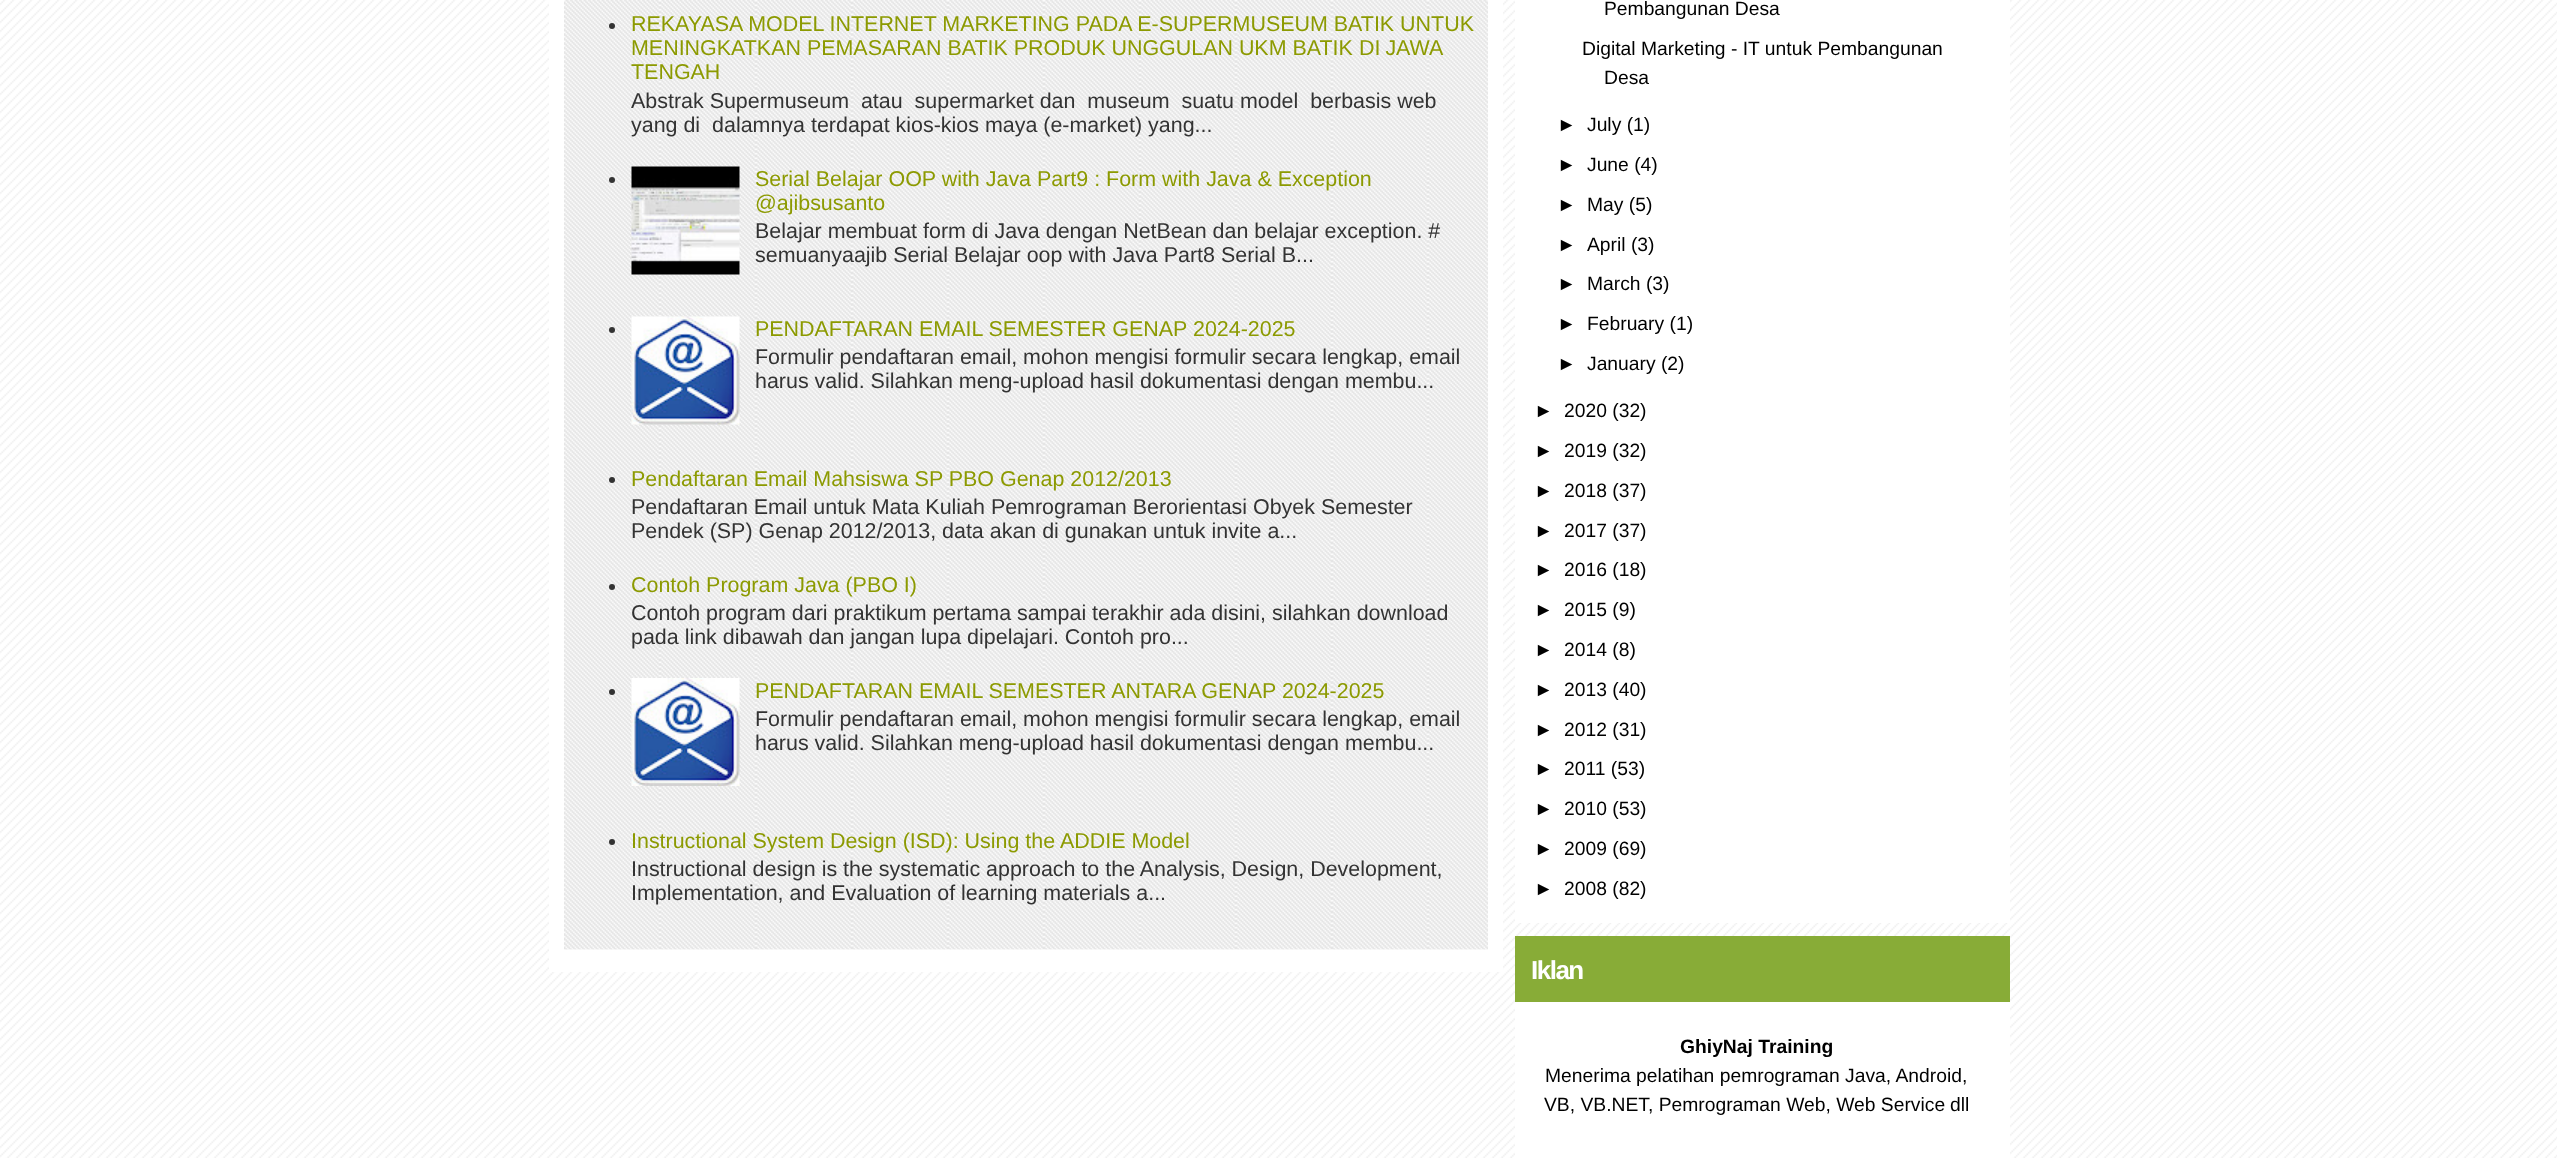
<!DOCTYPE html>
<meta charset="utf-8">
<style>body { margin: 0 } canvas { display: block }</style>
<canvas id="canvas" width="2557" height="1158"></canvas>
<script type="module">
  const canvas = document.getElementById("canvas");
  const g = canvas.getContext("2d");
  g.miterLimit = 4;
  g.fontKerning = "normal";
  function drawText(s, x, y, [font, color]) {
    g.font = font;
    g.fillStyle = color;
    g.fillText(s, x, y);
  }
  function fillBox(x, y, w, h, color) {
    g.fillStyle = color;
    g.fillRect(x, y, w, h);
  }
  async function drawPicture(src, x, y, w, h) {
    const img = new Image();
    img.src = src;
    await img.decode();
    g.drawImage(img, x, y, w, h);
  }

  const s1 = ["21.45px Liberation Sans", "#8C9A01"];
  const s2 = ["21.45px Liberation Sans", "#333333"];
  const s3 = ["19.3px Liberation Sans", "#000000"];
  const s4 = ["bold 26px Liberation Sans", "#FFFFFF"];
  const s5 = ["bold 19.3px Liberation Sans", "#000000"];

  fillBox(0, 0, 2557, 1158, "#FFFFFF");
  await drawPicture("pic1.png", 0, 0, 2557, 1158);
  fillBox(549, 0, 954, 972, "#FFFFFF");
  await drawPicture("pic2.png", 564, 0, 924, 950);
  g.fillStyle = "#333333";
  g.beginPath();
  g.arc(612, 26, 3, 0, Math.PI * 2);
  g.fill();
  drawText("REKAYASA MODEL INTERNET MARKETING PADA E-SUPERMUSEUM BATIK UNTUK", 631, 31, s1);
  drawText("MENINGKATKAN PEMASARAN BATIK PRODUK UNGGULAN UKM BATIK", 631, 55, s1);
  g.wordSpacing = "-1px";
  drawText("DI JAWA", 1359, 55, s1);
  g.wordSpacing = "0px";
  drawText("TENGAH", 631, 79, s1);
  drawText("Abstrak Supermuseum  atau  supermarket dan  museum  suatu model  berbasis web", 631, 108, s2);
  drawText("yang di  dalamnya terdapat kios-kios maya (e-market) yang...", 631, 132, s2);
  g.beginPath();
  g.arc(612, 180, 3, 0, Math.PI * 2);
  g.fill();
  await drawPicture("pic3.png", 631, 166, 109, 109);
  drawText("Serial Belajar OOP with Java Part9 : Form with Java & Exception", 755, 186, s1);
  drawText("@ajibsusanto", 755, 210, s1);
  drawText("Belajar membuat form di Java dengan NetBean dan belajar exception. #", 755, 238, s2);
  drawText("semuanyaajib Serial Belajar oop with Java Part8 Serial B...", 755, 262, s2);
  g.beginPath();
  g.arc(612, 330, 3, 0, Math.PI * 2);
  g.fill();
  await drawPicture("pic4.png", 631, 316, 109, 109);
  drawText("PENDAFTARAN EMAIL SEMESTER GENAP 2024-2025", 755, 336, s1);
  drawText("Formulir pendaftaran email, mohon mengisi formulir secara lengkap, email", 755, 364, s2);
  drawText("harus valid. Silahkan meng-upload hasil dokumentasi dengan membu...", 755, 388, s2);
  g.beginPath();
  g.arc(612, 480, 3, 0, Math.PI * 2);
  g.fill();
  drawText("Pendaftaran Email Mahsiswa SP PBO Genap 2012/2013", 631, 486, s1);
  drawText("Pendaftaran Email untuk Mata Kuliah Pemrograman Berorientasi Obyek Semester", 631, 514, s2);
  drawText("Pendek (SP) Genap 2012/2013, data akan di gunakan untuk invite a...", 631, 538, s2);
  g.beginPath();
  g.arc(612, 587, 3, 0, Math.PI * 2);
  g.fill();
  drawText("Contoh Program Java (PBO I)", 631, 592, s1);
  drawText("Contoh program dari praktikum pertama sampai terakhir ada disini, silahkan download", 631, 620, s2);
  drawText("pada link dibawah dan jangan lupa dipelajari. Contoh pro...", 631, 644, s2);
  g.beginPath();
  g.arc(612, 692, 3, 0, Math.PI * 2);
  g.fill();
  await drawPicture("pic5.png", 631, 678, 109, 108);
  drawText("PENDAFTARAN EMAIL SEMESTER ANTARA GENAP 2024-2025", 755, 698, s1);
  drawText("Formulir pendaftaran email, mohon mengisi formulir secara lengkap, email", 755, 726, s2);
  drawText("harus valid. Silahkan meng-upload hasil dokumentasi dengan membu...", 755, 750, s2);
  g.beginPath();
  g.arc(612, 842, 3, 0, Math.PI * 2);
  g.fill();
  drawText("Instructional System Design (ISD): Using the ADDIE Model", 631, 848, s1);
  drawText("Instructional design is the systematic approach to the Analysis, Design, Development,", 631, 876, s2);
  drawText("Implementation, and Evaluation of learning materials a...", 631, 900, s2);
  fillBox(1515, 0, 495, 923, "#FFFFFF");
  drawText("Pembangunan Desa", 1604, 15, s3);
  drawText("Digital Marketing - IT untuk Pembangunan", 1582, 55, s3);
  drawText("Desa", 1604, 84, s3);
  drawText("►", 1557, 131, s3);
  drawText("July (1)", 1587, 131, s3);
  drawText("►", 1557, 171, s3);
  drawText("June (4)", 1587, 171, s3);
  drawText("►", 1557, 211, s3);
  drawText("May (5)", 1587, 211, s3);
  drawText("►", 1557, 251, s3);
  drawText("April (3)", 1587, 251, s3);
  drawText("►", 1557, 290, s3);
  drawText("March (3)", 1587, 290, s3);
  drawText("►", 1557, 330, s3);
  drawText("February (1)", 1587, 330, s3);
  drawText("►", 1557, 370, s3);
  drawText("January (2)", 1587, 370, s3);
  drawText("►", 1534, 417, s3);
  drawText("2020 (32)", 1564, 417, s3);
  drawText("►", 1534, 457, s3);
  drawText("2019 (32)", 1564, 457, s3);
  drawText("►", 1534, 497, s3);
  drawText("2018 (37)", 1564, 497, s3);
  drawText("►", 1534, 537, s3);
  drawText("2017 (37)", 1564, 537, s3);
  drawText("►", 1534, 576, s3);
  drawText("2016 (18)", 1564, 576, s3);
  drawText("►", 1534, 616, s3);
  drawText("2015 (9)", 1564, 616, s3);
  drawText("►", 1534, 656, s3);
  drawText("2014 (8)", 1564, 656, s3);
  drawText("►", 1534, 696, s3);
  drawText("2013 (40)", 1564, 696, s3);
  drawText("►", 1534, 736, s3);
  drawText("2012 (31)", 1564, 736, s3);
  drawText("►", 1534, 775, s3);
  drawText("2011 (53)", 1564, 775, s3);
  drawText("►", 1534, 815, s3);
  drawText("2010 (53)", 1564, 815, s3);
  drawText("►", 1534, 855, s3);
  drawText("2009 (69)", 1564, 855, s3);
  drawText("►", 1534, 895, s3);
  drawText("2008 (82)", 1564, 895, s3);
  fillBox(1515, 1002, 495, 156, "#FFFFFF");
  fillBox(1515, 936, 495, 66, "#88AC37");
  g.letterSpacing = "-1.5px";
  drawText("Iklan", 1531, 979, s4);
  g.letterSpacing = "0px";
  drawText("GhiyNaj Training", 1680, 1053, s5);
  drawText("Menerima pelatihan pemrograman Java, Android,", 1545, 1082, s3);
  drawText("VB, VB.NET, Pemrograman Web, Web Service", 1544, 1111, s3);
  drawText("dll", 1950, 1111, s3);
</script>
